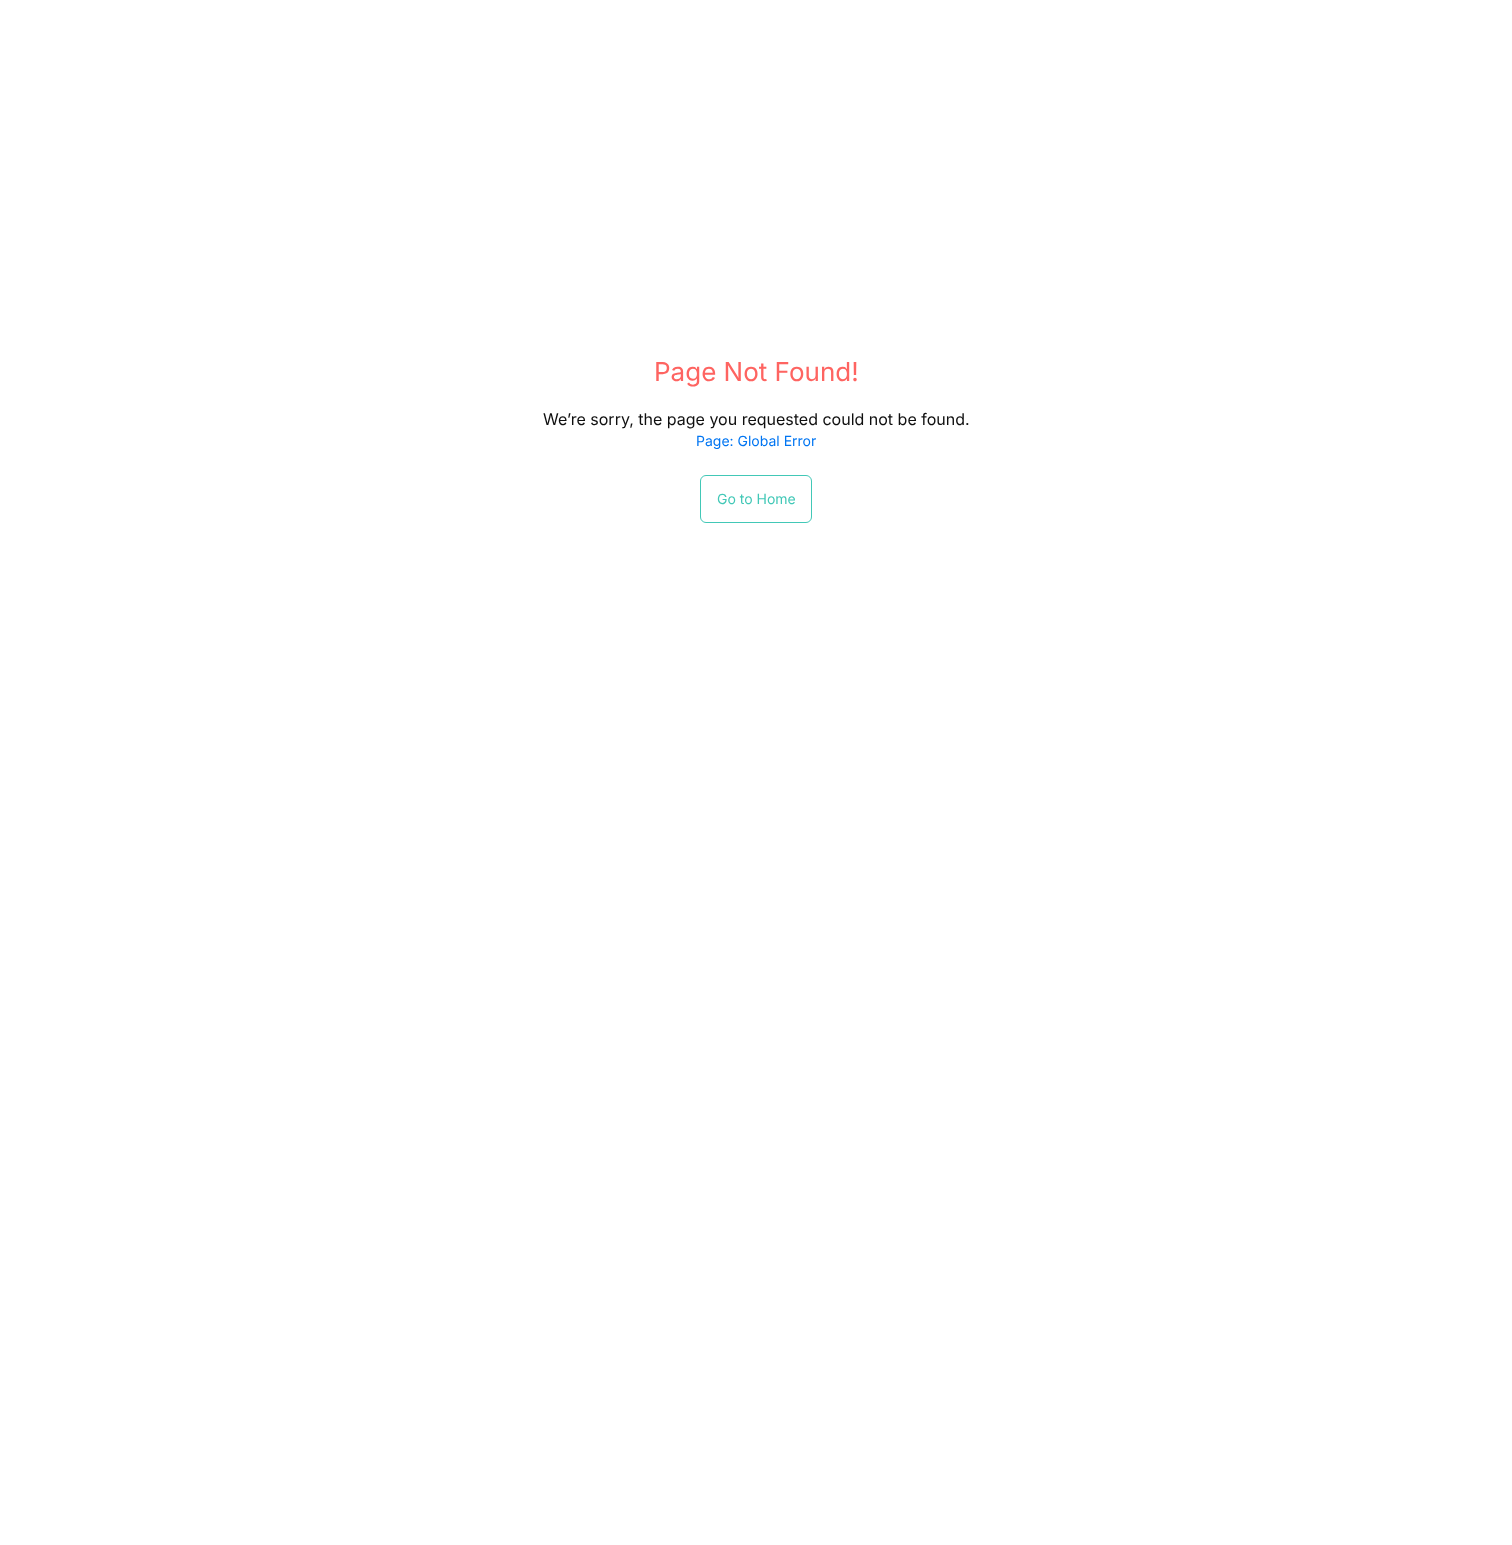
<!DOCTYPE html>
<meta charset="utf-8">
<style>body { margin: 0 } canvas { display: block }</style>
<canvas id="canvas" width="1512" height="1545"></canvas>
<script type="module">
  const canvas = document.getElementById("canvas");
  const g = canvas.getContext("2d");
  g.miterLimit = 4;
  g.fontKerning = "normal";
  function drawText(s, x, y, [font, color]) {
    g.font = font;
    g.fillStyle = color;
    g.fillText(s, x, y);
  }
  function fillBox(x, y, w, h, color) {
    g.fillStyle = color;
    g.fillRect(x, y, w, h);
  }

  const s1 = ["26px Inter", "#FE6461"];
  const s2 = ["16px Inter", "#0F0F0F"];
  const s3 = ["14px Inter", "#0075F2"];
  const s4 = ["14px Inter", "#42C8B7"];

  fillBox(0, 0, 1512, 1545, "#FFFFFF");
  drawText("Page Not Found!", 654, 381, s1);
  drawText("We’re sorry, the page you requested could not be found.", 543, 425, s2);
  drawText("Page: Global Error", 696, 446, s3);
  g.beginPath();
  g.roundRect(700.5, 475.5, 111, 47, 5.5);
  g.strokeStyle = "#42C8B7";
  g.stroke();
  drawText("Go to Home", 717, 504, s4);
</script>
